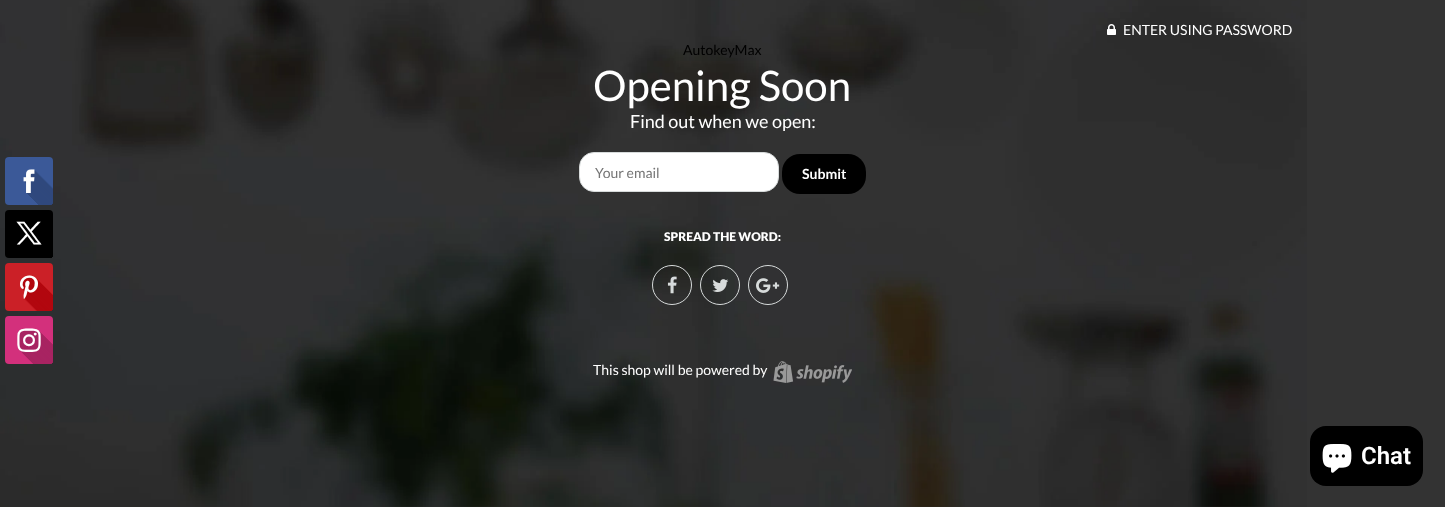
<!DOCTYPE html>
<meta charset="utf-8">
<style>body { margin: 0 } canvas { display: block }</style>
<canvas id="canvas" width="1445" height="507"></canvas>
<script type="module">
  const canvas = document.getElementById("canvas");
  const g = canvas.getContext("2d");
  g.miterLimit = 4;
  g.fontKerning = "normal";
  function drawText(s, x, y, [font, color]) {
    g.font = font;
    g.fillStyle = color;
    g.fillText(s, x, y);
  }
  function fillBox(x, y, w, h, color) {
    g.fillStyle = color;
    g.fillRect(x, y, w, h);
  }
  function fillRounded(x, y, w, h, r, color) {
    g.fillStyle = color;
    g.beginPath();
    g.roundRect(x, y, w, h, r);
    g.fill();
  }
  async function drawPicture(src, x, y, w, h) {
    const img = new Image();
    img.src = src;
    await img.decode();
    g.drawImage(img, x, y, w, h);
  }

  const s1 = ["14px Lato", "#FFFFFF"];
  const s2 = ["14px Lato", "#000000"];
  const s3 = ["42px Lato", "#FFFFFF"];
  const s4 = ["18px Lato", "#FFFFFF"];
  const s5 = ["14px Lato", "#757575"];
  const s6 = ["bold 14px Lato", "#FFFFFF"];
  const s7 = ["900 12px Lato", "#FFFFFF"];
  const s8 = ["600 24px Roboto", "#FFFFFF"];

  fillBox(0, 0, 1445, 507, "#333333");
  await drawPicture("pic1.png", 0, 0, 1307, 507);
  await drawPicture("pic2.png", 1107, 24, 9, 11);
  drawText("ENTER USING PASSWORD", 1123, 35, s1);
  drawText("AutokeyMax", 683, 55, s2);
  await drawPicture("pic3.png", 5, 157, 48, 207);
  drawText("Opening Soon", 593, 101, s3);
  drawText("Find out when we open:", 630, 128, s4);
  g.beginPath();
  g.roundRect(579.5, 152.5, 199, 39, 14.5);
  g.fill();
  g.strokeStyle = "#D7DBDB";
  g.stroke();
  drawText("Your email", 595, 178, s5);
  fillRounded(782, 154, 84, 40, 18, "#000000");
  drawText("Submit", 802, 179, s6);
  drawText("SPREAD THE WORD:", 664, 241, s7);
  g.beginPath();
  g.arc(672, 285, 19.5, 0, Math.PI * 2);
  g.stroke();
  await drawPicture("pic4.png", 667, 276, 10, 18);
  g.beginPath();
  g.arc(720, 285, 19.5, 0, Math.PI * 2);
  g.stroke();
  await drawPicture("pic5.png", 712, 279, 17, 13);
  g.beginPath();
  g.arc(768, 285, 19.5, 0, Math.PI * 2);
  g.stroke();
  await drawPicture("pic6.png", 756, 278, 24, 15);
  drawText("This shop will be powered by", 593, 375, s1);
  await drawPicture("pic7.png", 773, 361, 79, 22);
  fillRounded(1310, 426, 113, 60, 16, "#000000");
  await drawPicture("pic8.png", 1322, 444, 30, 29);
  drawText("Chat", 1361, 464, s8);
</script>
